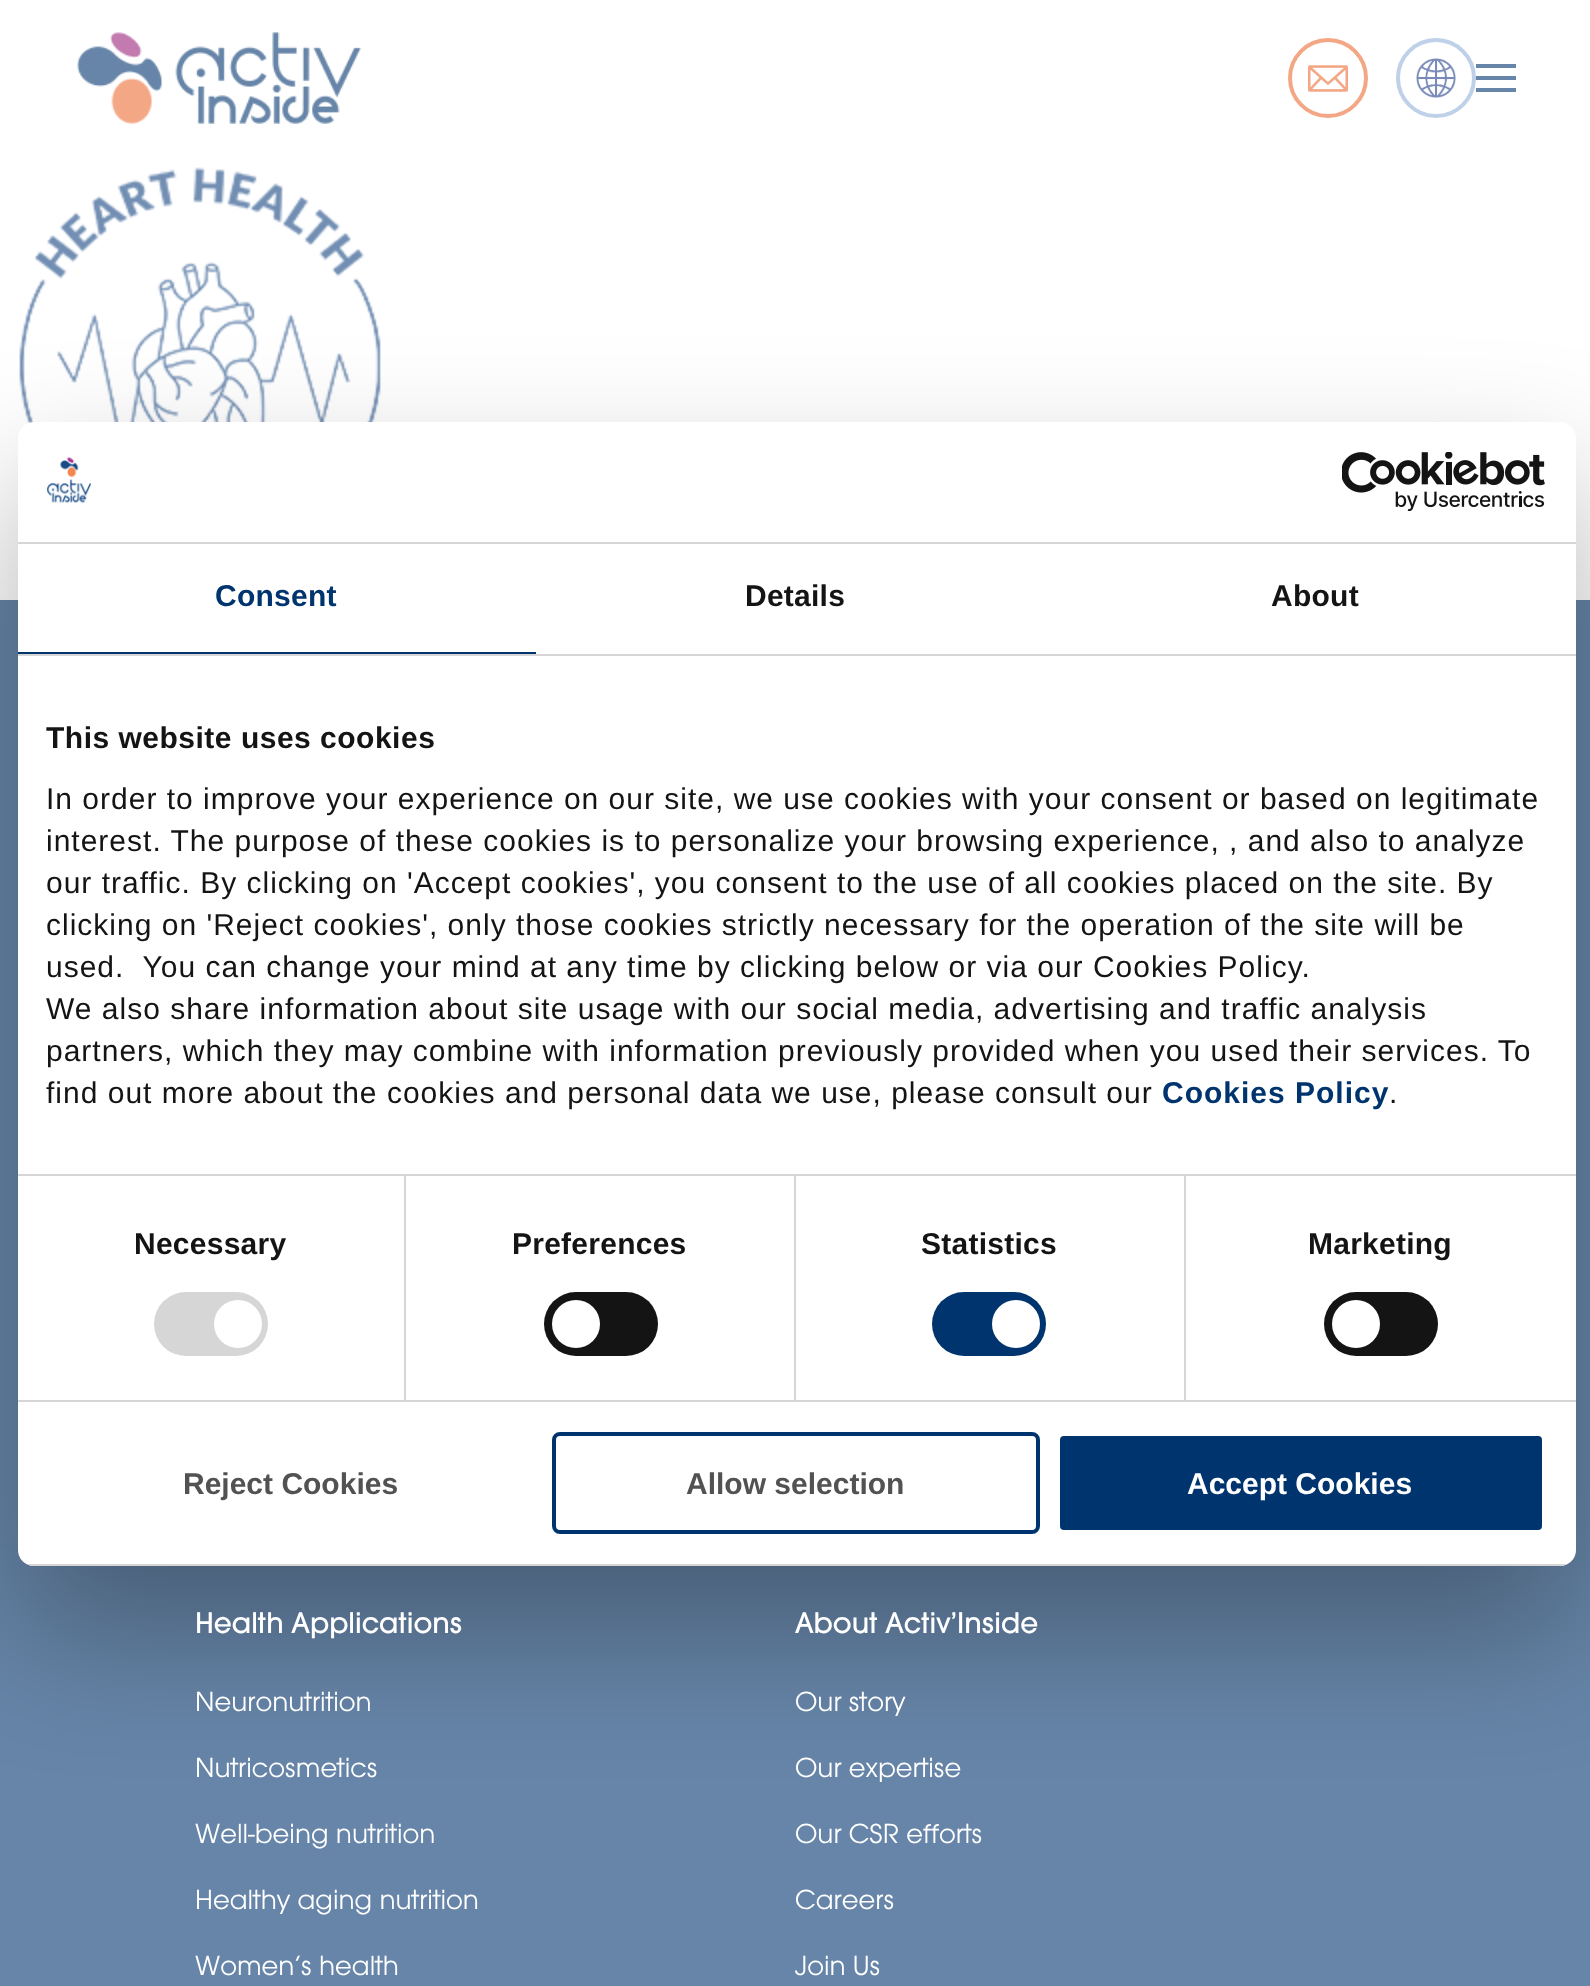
<!DOCTYPE html>
<meta charset="utf-8">
<style>body { margin: 0 } canvas { display: block }</style>
<canvas id="canvas" width="1590" height="1986"></canvas>
<script type="module">
  const canvas = document.getElementById("canvas");
  const g = canvas.getContext("2d");
  g.miterLimit = 4;
  g.fontKerning = "normal";
  function drawText(s, x, y, [font, color]) {
    g.font = font;
    g.fillStyle = color;
    g.fillText(s, x, y);
  }
  function fillBox(x, y, w, h, color) {
    g.fillStyle = color;
    g.fillRect(x, y, w, h);
  }
  function fillRounded(x, y, w, h, r, color) {
    g.fillStyle = color;
    g.beginPath();
    g.roundRect(x, y, w, h, r);
    g.fill();
  }
  async function drawPicture(src, x, y, w, h) {
    const img = new Image();
    img.src = src;
    await img.decode();
    g.drawImage(img, x, y, w, h);
  }

  const s1 = ["bold 30px Liberation Sans", "#00346E"];
  const s2 = ["bold 30px Liberation Sans", "#141414"];
  const s3 = ["30px Liberation Sans", "#141414"];
  const s4 = ["bold 30px Liberation Sans", "#525252"];
  const s5 = ["bold 30px Liberation Sans", "#FFFFFF"];
  const s6 = ["500 31.25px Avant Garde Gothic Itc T", "#FFFFFF"];
  const s7 = ["28.75px Avant Garde Gothic Itc T", "#FFFFFF"];

  fillBox(0, 0, 1590, 1986, "#FFFFFF");
  await drawPicture("pic1.png", 77, 32, 284, 92);
  g.beginPath();
  g.arc(1328, 78, 38, 0, Math.PI * 2);
  g.strokeStyle = "#F4A785";
  g.lineWidth = 4;
  g.stroke();
  await drawPicture("pic2.png", 1308, 65, 40, 27);
  g.beginPath();
  g.arc(1436, 78, 38, 0, Math.PI * 2);
  g.strokeStyle = "#BED1E8";
  g.stroke();
  await drawPicture("pic3.png", 1416, 58, 40, 40);
  fillBox(1476, 64, 40, 4, "#6685A8");
  fillBox(1476, 76, 40, 4, "#6685A8");
  fillBox(1476, 88, 40, 4, "#6685A8");
  await drawPicture("pic4.png", 19, 167, 362, 257);
  fillBox(0, 600, 1590, 1386, "#6685A8");
  g.fillStyle = "rgba(0, 0, 0, 0.3)";
  g.filter = "blur(68px)";
  g.beginPath();
  g.roundRect(18, 486, 1558, 1144, 16);
  g.fill();
  g.filter = "none";
  fillRounded(18, 422, 1558, 1144, 16, "#FFFFFF");
  fillBox(18, 542, 1558, 2, "#D6D6D6");
  await drawPicture("pic5.png", 46, 457, 45, 46);
  await drawPicture("pic6.png", 1342, 452, 203, 60);
  fillBox(18, 654, 1558, 2, "#D6D6D6");
  fillBox(18, 652, 518, 2, "#00346E");
  g.letterSpacing = "0.25px";
  drawText("Consent", 215, 606, s1);
  drawText("Details", 745, 606, s2);
  drawText("About", 1271, 606, s2);
  fillBox(18, 1174, 1558, 2, "#D6D6D6");
  g.letterSpacing = "0.5px";
  drawText("This website uses cookies", 46, 748, s2);
  g.letterSpacing = "1px";
  drawText("In order to improve your experience on our site, we use cookies with your consent or based on legitimate", 46, 809, s3);
  drawText("interest. The purpose of these cookies is to personalize your browsing experience, , and also to analyze", 46, 851, s3);
  drawText("our traffic. By clicking on 'Accept cookies', you consent to the use of all cookies placed on the site. By", 46, 893, s3);
  drawText("clicking on 'Reject cookies', only those cookies strictly necessary for the operation of the site will be", 46, 935, s3);
  drawText("used.  You can change your mind at any time by clicking below or via our Cookies Policy.", 46, 977, s3);
  drawText("We also share information about site usage with our social media, advertising and traffic analysis", 46, 1019, s3);
  drawText("partners, which they may combine with information previously provided when you used their services. To", 46, 1061, s3);
  drawText("find out more about the cookies and personal data we use, please consult our", 46, 1103, s3);
  drawText("Cookies Policy", 1162, 1103, s1);
  drawText(".", 1389, 1103, s3);
  fillBox(18, 1400, 1558, 2, "#D6D6D6");
  fillBox(404, 1176, 2, 224, "#D6D6D6");
  g.letterSpacing = "0.25px";
  drawText("Necessary", 134, 1254, s2);
  fillRounded(154, 1292, 114, 64, 32, "#D6D6D6");
  g.fillStyle = "#FFFFFF";
  g.beginPath();
  g.arc(238, 1324, 24, 0, Math.PI * 2);
  g.fill();
  fillBox(794, 1176, 2, 224, "#D6D6D6");
  drawText("Preferences", 512, 1254, s2);
  fillRounded(544, 1292, 114, 64, 32, "#141414");
  g.fillStyle = "#FFFFFF";
  g.beginPath();
  g.arc(576, 1324, 24, 0, Math.PI * 2);
  g.fill();
  fillBox(1184, 1176, 2, 224, "#D6D6D6");
  drawText("Statistics", 921, 1254, s2);
  fillRounded(932, 1292, 114, 64, 32, "#00346E");
  g.fillStyle = "#FFFFFF";
  g.beginPath();
  g.arc(1016, 1324, 24, 0, Math.PI * 2);
  g.fill();
  drawText("Marketing", 1308, 1254, s2);
  fillRounded(1324, 1292, 114, 64, 32, "#141414");
  g.fillStyle = "#FFFFFF";
  g.beginPath();
  g.arc(1356, 1324, 24, 0, Math.PI * 2);
  g.fill();
  g.save();
  g.beginPath();
  g.roundRect(18, 422, 1558, 1144, 16);
  g.clip();
  fillBox(18, 1564, 1558, 2, "#D6D6D6");
  g.restore();
  g.letterSpacing = "0px";
  drawText("Reject Cookies", 183, 1494, s4);
  g.beginPath();
  g.roundRect(554, 1434, 484, 98, 6);
  g.strokeStyle = "#00346E";
  g.stroke();
  drawText("Allow selection", 686, 1494, s4);
  g.fillStyle = "#00346E";
  g.beginPath();
  g.roundRect(1058, 1434, 486, 98, 6);
  g.fill();
  g.strokeStyle = "#FFFFFF";
  g.stroke();
  drawText("Accept Cookies", 1187, 1494, s5);
  drawText("Health Applications", 195, 1633, s6);
  drawText("Neuronutrition", 195, 1711, s7);
  drawText("Nutricosmetics", 195, 1777, s7);
  drawText("Well-being nutrition", 195, 1843, s7);
  drawText("Healthy aging nutrition", 195, 1909, s7);
  drawText("Women’s health", 195, 1975, s7);
  drawText("About Activ’Inside", 795, 1633, s6);
  drawText("Our story", 795, 1711, s7);
  drawText("Our expertise", 795, 1777, s7);
  drawText("Our CSR efforts", 795, 1843, s7);
  drawText("Careers", 795, 1909, s7);
  drawText("Join Us", 795, 1975, s7);
</script>
